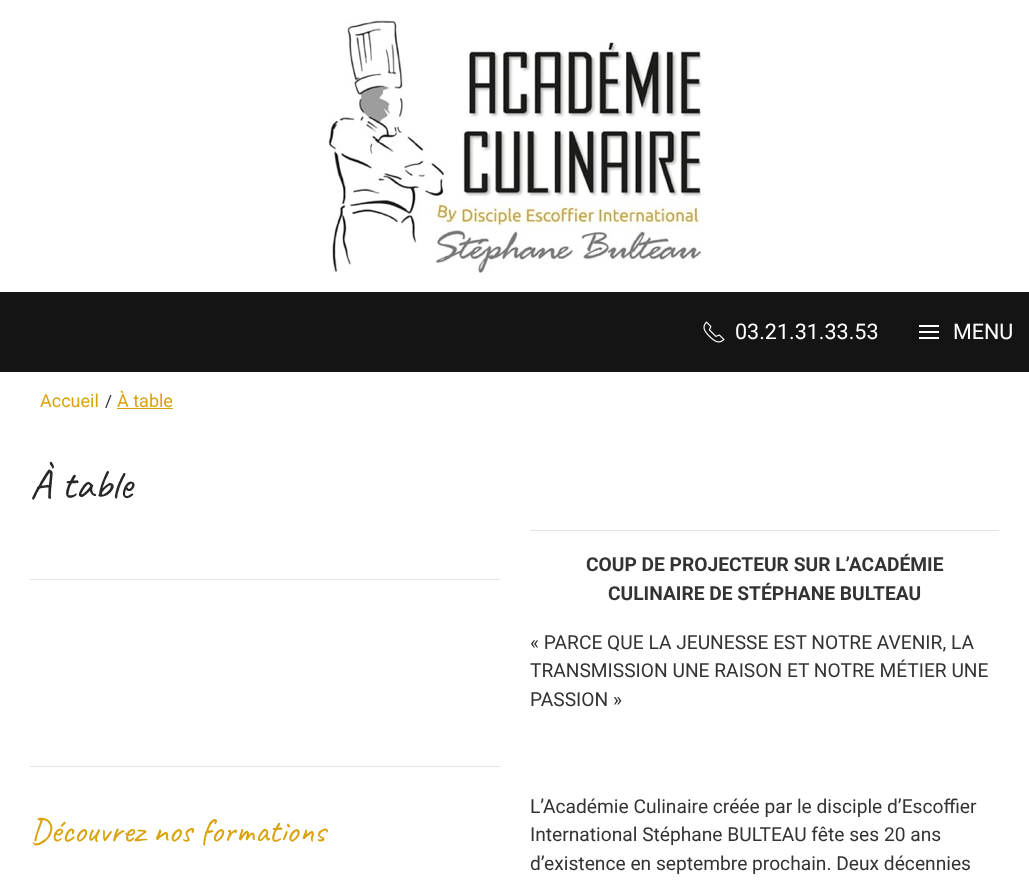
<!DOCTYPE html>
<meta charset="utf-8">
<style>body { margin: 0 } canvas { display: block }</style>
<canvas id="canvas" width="1029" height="894"></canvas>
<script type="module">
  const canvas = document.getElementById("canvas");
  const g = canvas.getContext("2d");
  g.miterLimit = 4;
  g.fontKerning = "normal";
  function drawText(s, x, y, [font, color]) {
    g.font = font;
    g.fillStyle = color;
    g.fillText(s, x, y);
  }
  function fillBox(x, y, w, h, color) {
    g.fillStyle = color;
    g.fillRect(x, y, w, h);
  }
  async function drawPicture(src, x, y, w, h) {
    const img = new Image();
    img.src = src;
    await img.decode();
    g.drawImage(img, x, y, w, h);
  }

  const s1 = ["21.5px Roboto", "#FFFFFF"];
  const s2 = ["18px Roboto", "#D9A30F"];
  const s3 = ["17px Roboto", "#333333"];
  const s4 = ["42px Caveat", "#272727"];
  const s5 = ["34.5px Caveat", "#D9A30F"];
  const s6 = ["bold 19.2px Roboto", "#333333"];
  const s7 = ["19.2px Roboto", "#333333"];

  fillBox(0, 0, 1029, 894, "#FFFFFF");
  await drawPicture("pic1.png", 328, 20, 374, 254);
  fillBox(0, 292, 1029, 80, "#141414");
  await drawPicture("pic2.png", 703, 321, 22, 22);
  drawText("03.21.31.33.53", 735, 339, s1);
  fillBox(919, 325, 20, 2, "#FFFFFF");
  fillBox(919, 331, 20, 2, "#FFFFFF");
  fillBox(919, 337, 20, 2, "#FFFFFF");
  drawText("MENU", 953, 339, s1);
  drawText("Accueil", 40, 407, s2);
  drawText("/", 105, 407, s3);
  drawText("À table", 117, 407, s2);
  fillBox(117, 408, 56, 1, "#D9A30F");
  drawText("À table", 30, 498, s4);
  fillBox(30, 579, 470, 1, "#E5E5E5");
  fillBox(30, 766, 470, 1, "#E5E5E5");
  drawText("Découvrez nos formations", 30, 842, s5);
  fillBox(530, 530, 469, 1, "#E5E5E5");
  drawText("COUP DE PROJECTEUR SUR L’ACADÉMIE", 586, 571, s6);
  drawText("CULINAIRE DE STÉPHANE BULTEAU", 608, 600, s6);
  drawText("« PARCE QUE LA JEUNESSE EST NOTRE AVENIR, LA", 530, 649, s7);
  drawText("TRANSMISSION UNE RAISON ET NOTRE MÉTIER UNE", 530, 677, s7);
  drawText("PASSION »", 530, 706, s7);
  drawText("L’Académie Culinaire créée par le disciple d’Escoffier", 530, 813, s7);
  drawText("International Stéphane BULTEAU fête ses 20 ans", 530, 841, s7);
  drawText("d’existence en septembre prochain. Deux décennies", 530, 870, s7);
</script>
